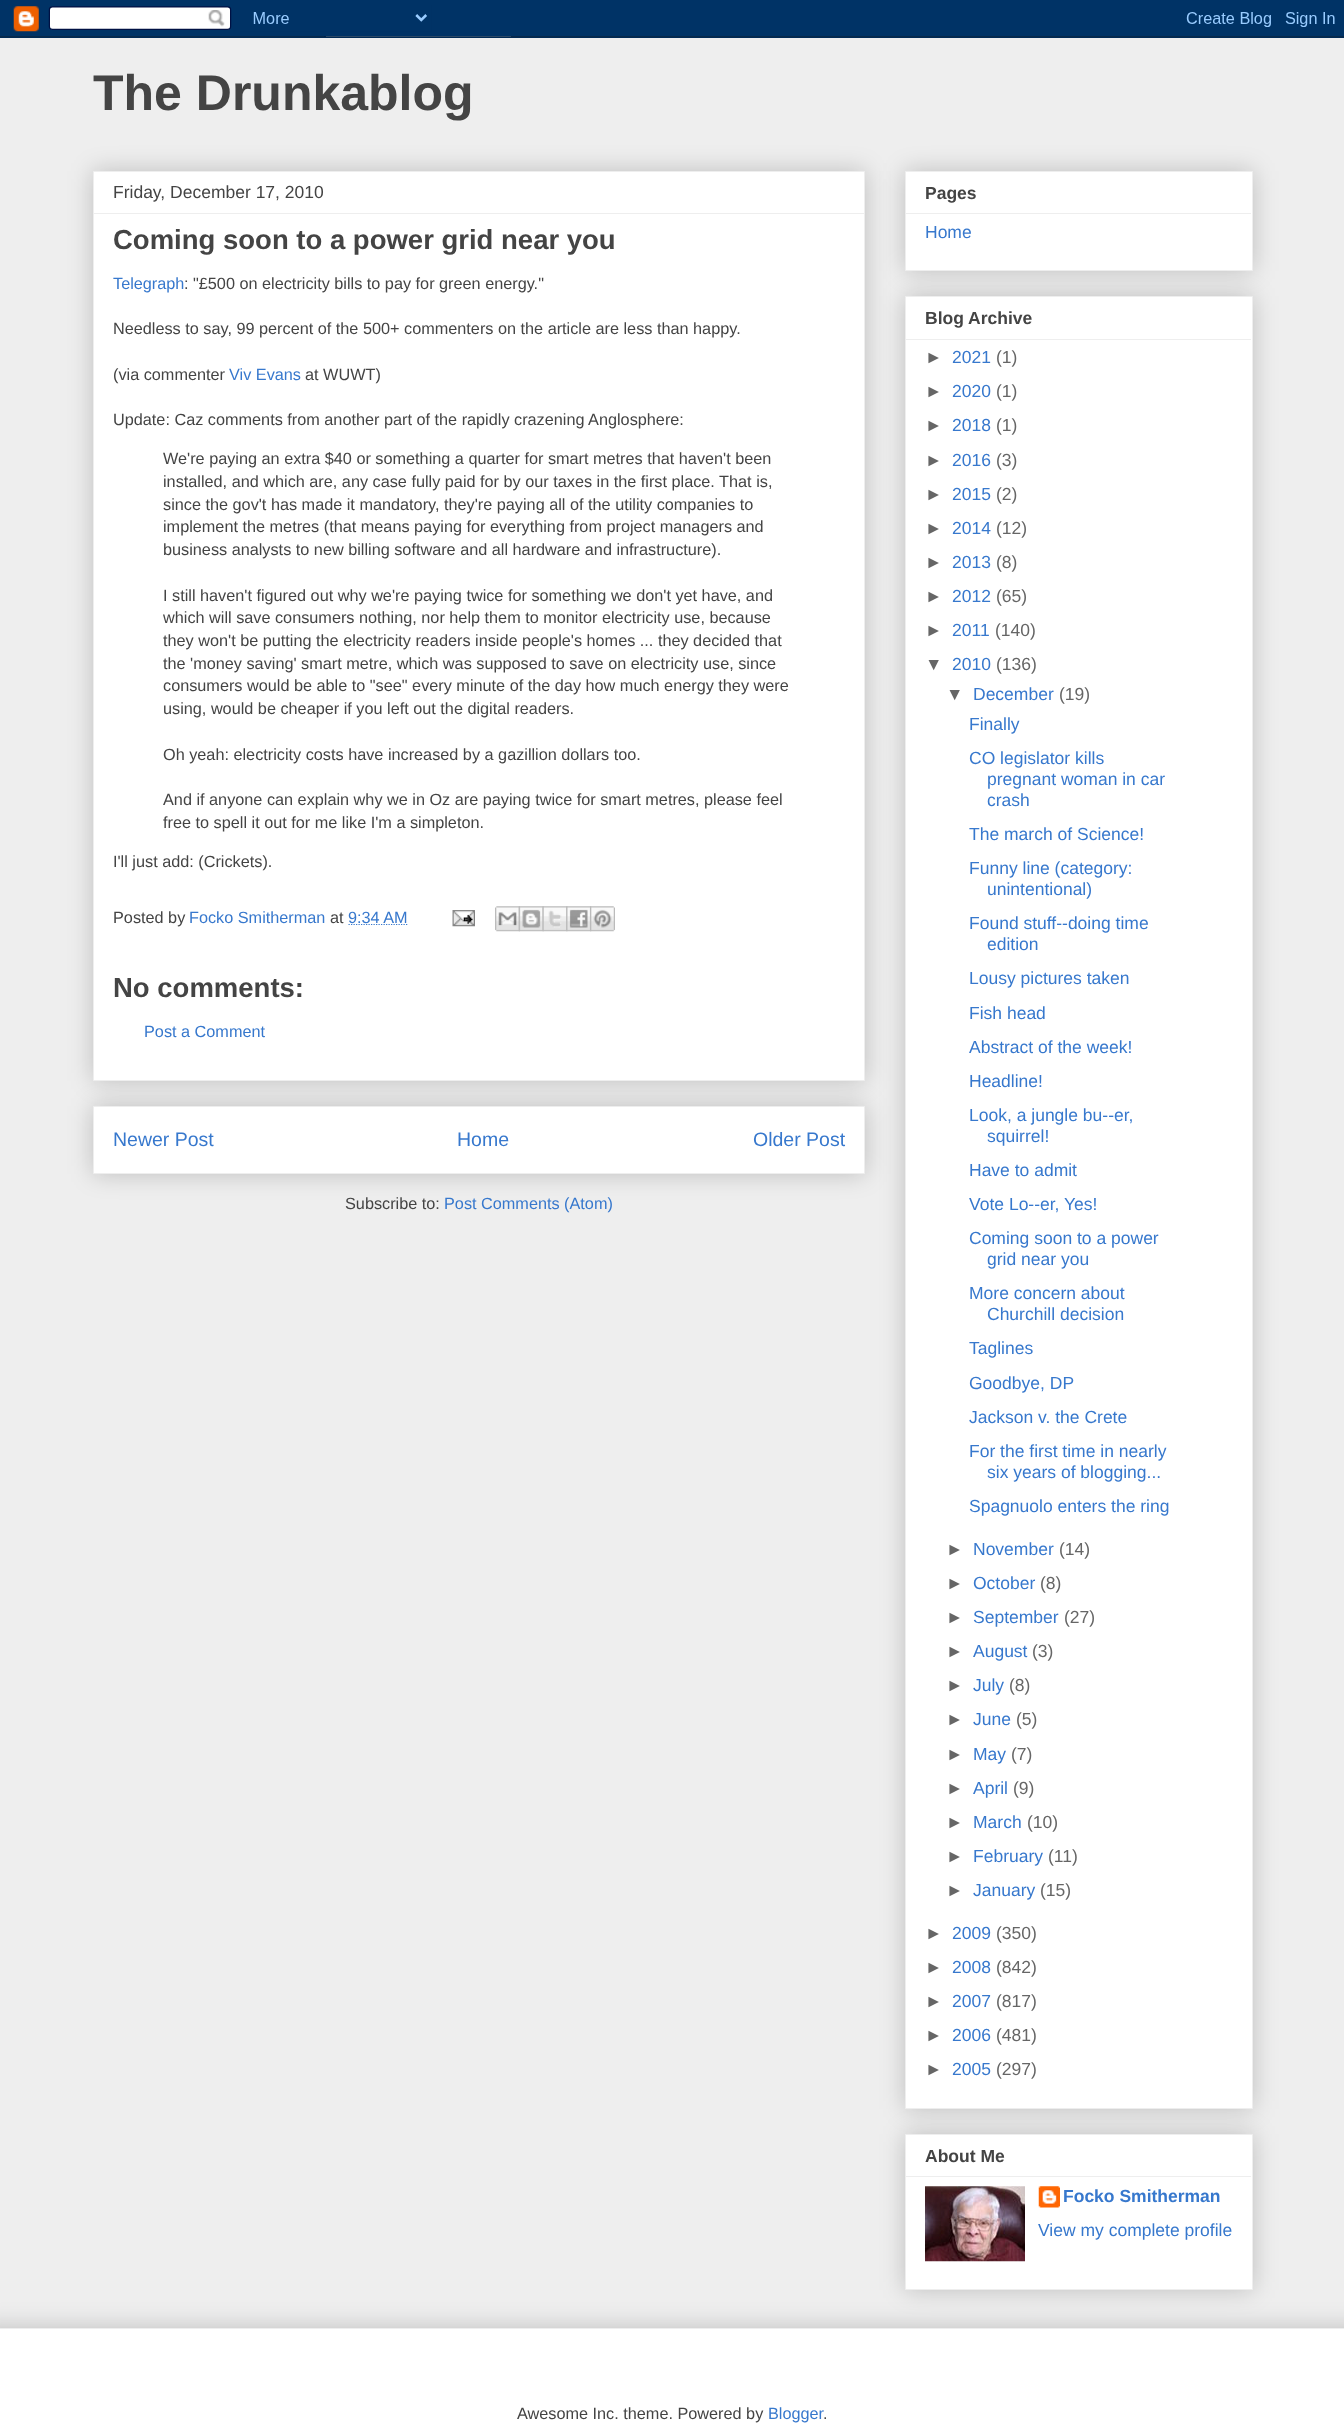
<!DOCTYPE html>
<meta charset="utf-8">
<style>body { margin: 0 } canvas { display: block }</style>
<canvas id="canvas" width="1344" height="2432"></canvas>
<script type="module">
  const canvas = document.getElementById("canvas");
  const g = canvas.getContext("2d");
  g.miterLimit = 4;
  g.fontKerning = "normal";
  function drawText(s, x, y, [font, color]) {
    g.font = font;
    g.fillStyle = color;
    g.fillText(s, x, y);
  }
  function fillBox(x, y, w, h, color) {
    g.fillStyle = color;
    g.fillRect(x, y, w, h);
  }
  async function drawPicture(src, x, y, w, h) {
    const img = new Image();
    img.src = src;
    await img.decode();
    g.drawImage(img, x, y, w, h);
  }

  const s1 = ["bold 50px Liberation Sans", "#444444"];
  const s2 = ["17.5px Liberation Sans", "#444444"];
  const s3 = ["bold 27.5px Liberation Sans", "#444444"];
  const s4 = ["16.25px Liberation Sans", "#3778CD"];
  const s5 = ["16.25px Liberation Sans", "#444444"];
  const s6 = ["19.5px Liberation Sans", "#3778CD"];
  const s7 = ["bold 17.5px Liberation Sans", "#444444"];
  const s8 = ["17.5px Liberation Sans", "#3778CD"];
  const s9 = ["17.5px Liberation Sans", "#666666"];
  const s10 = ["bold 17.5px Liberation Sans", "#3778CD"];

  fillBox(0, 0, 1344, 2432, "#EEEEEE");
  await drawPicture("pic1.png", 0, 0, 1344, 38);
  drawText("The Drunkablog", 93, 110, s1);
  g.fillStyle = "rgba(0, 0, 0, 0.2)";
  g.filter = "blur(12.5px)";
  g.beginPath();
  g.rect(93, 1106, 772, 68);
  g.fill();
  g.filter = "none";
  g.fillStyle = "#FFFFFF";
  g.beginPath();
  g.rect(93.5, 1106.5, 771, 67);
  g.fill();
  g.strokeStyle = "#EEEEEE";
  g.stroke();
  g.fillStyle = "rgba(0, 0, 0, 0.2)";
  g.filter = "blur(12.5px)";
  g.beginPath();
  g.rect(93, 171, 772, 910);
  g.fill();
  g.filter = "none";
  g.fillStyle = "#FFFFFF";
  g.beginPath();
  g.rect(93.5, 171.5, 771, 909);
  g.fill();
  g.stroke();
  drawText("Friday, December 17, 2010", 113, 198, s2);
  fillBox(94, 213, 770, 1, "#EEEEEE");
  drawText("Coming soon to a power grid near you", 113, 249, s3);
  drawText("Telegraph", 113, 289, s4);
  drawText(": \"£500 on electricity bills to pay for green energy.\"", 184, 289, s5);
  drawText("Needless to say, 99 percent of the 500+ commenters on the article are less than happy.", 113, 334, s5);
  drawText("(via commenter", 113, 380, s5);
  drawText("Viv Evans", 229, 380, s4);
  drawText("at WUWT)", 305, 380, s5);
  drawText("Update: Caz comments from another part of the rapidly crazening Anglosphere:", 113, 425, s5);
  drawText("We're paying an extra $40 or something a quarter for smart metres that haven't been", 163, 464, s5);
  drawText("installed, and which are, any case fully paid for by our taxes in the first place. That is,", 163, 487, s5);
  drawText("since the gov't has made it mandatory, they're paying all of the utility companies to", 163, 510, s5);
  drawText("implement the metres (that means paying for everything from project managers and", 163, 532, s5);
  drawText("business analysts to new billing software and all hardware and infrastructure).", 163, 555, s5);
  drawText("I still haven't figured out why we're paying twice for something we don't yet have, and", 163, 601, s5);
  drawText("which will save consumers nothing, nor help them to monitor electricity use, because", 163, 623, s5);
  drawText("they won't be putting the electricity readers inside people's homes ... they decided that", 163, 646, s5);
  drawText("the 'money saving' smart metre, which was supposed to save on electricity use, since", 163, 669, s5);
  drawText("consumers would be able to \"see\" every minute of the day how much energy they were", 163, 691, s5);
  drawText("using, would be cheaper if you left out the digital readers.", 163, 714, s5);
  drawText("Oh yeah: electricity costs have increased by a gazillion dollars too.", 163, 760, s5);
  drawText("And if anyone can explain why we in Oz are paying twice for smart metres, please feel", 163, 805, s5);
  drawText("free to spell it out for me like I'm a simpleton.", 163, 828, s5);
  drawText("I'll just add: (Crickets).", 113, 867, s5);
  drawText("Posted by", 113, 923, s5);
  drawText("Focko Smitherman", 189, 923, s4);
  drawText("at", 330, 923, s5);
  g.beginPath();
  g.moveTo(348.5, 924.5);
  g.lineTo(408, 924.5);
  g.strokeStyle = "#3778CD";
  g.lineWidth = 1.2;
  g.setLineDash([1.25, 1.25]);
  g.stroke();
  drawText("9:34 AM", 348, 923, s4);
  await drawPicture("pic2.png", 452, 910, 23, 17);
  await drawPicture("pic3.png", 495, 906, 25, 26);
  await drawPicture("pic4.png", 518, 906, 26, 26);
  await drawPicture("pic5.png", 542, 906, 26, 26);
  await drawPicture("pic6.png", 566, 906, 26, 26);
  await drawPicture("pic7.png", 590, 906, 25, 26);
  drawText("No comments:", 113, 997, s3);
  drawText("Post a Comment", 144, 1037, s4);
  drawText("Newer Post", 113, 1146, s6);
  drawText("Home", 457, 1146, s6);
  drawText("Older Post", 753, 1146, s6);
  drawText("Subscribe to:", 345, 1209, s5);
  drawText("Post Comments (Atom)", 444, 1209, s4);
  g.fillStyle = "rgba(0, 0, 0, 0.2)";
  g.filter = "blur(12.5px)";
  g.beginPath();
  g.rect(905, 171, 348, 100);
  g.fill();
  g.filter = "none";
  g.fillStyle = "#FFFFFF";
  g.beginPath();
  g.rect(905.5, 171.5, 347, 99);
  g.fill();
  g.strokeStyle = "#EEEEEE";
  g.lineWidth = 1;
  g.setLineDash([]);
  g.stroke();
  drawText("Pages", 925, 199, s7);
  fillBox(906, 213, 345, 1, "#EEEEEE");
  drawText("Home", 925, 238, s8);
  g.fillStyle = "rgba(0, 0, 0, 0.2)";
  g.filter = "blur(12.5px)";
  g.beginPath();
  g.rect(905, 296, 348, 1813);
  g.fill();
  g.filter = "none";
  g.fillStyle = "#FFFFFF";
  g.beginPath();
  g.rect(905.5, 296.5, 347, 1812);
  g.fill();
  g.stroke();
  drawText("Blog Archive", 925, 324, s7);
  fillBox(906, 339, 345, 1, "#EEEEEE");
  drawText("►", 925, 363, s9);
  drawText("2021", 952, 363, s8);
  drawText("(1)", 996, 363, s9);
  drawText("►", 925, 397, s9);
  drawText("2020", 952, 397, s8);
  drawText("(1)", 996, 397, s9);
  drawText("►", 925, 431, s9);
  drawText("2018", 952, 431, s8);
  drawText("(1)", 996, 431, s9);
  drawText("►", 925, 466, s9);
  drawText("2016", 952, 466, s8);
  drawText("(3)", 996, 466, s9);
  drawText("►", 925, 500, s9);
  drawText("2015", 952, 500, s8);
  drawText("(2)", 996, 500, s9);
  drawText("►", 925, 534, s9);
  drawText("2014", 952, 534, s8);
  drawText("(12)", 996, 534, s9);
  drawText("►", 925, 568, s9);
  drawText("2013", 952, 568, s8);
  drawText("(8)", 996, 568, s9);
  drawText("►", 925, 602, s9);
  drawText("2012", 952, 602, s8);
  drawText("(65)", 996, 602, s9);
  drawText("►", 925, 636, s9);
  drawText("2011", 952, 636, s8);
  drawText("(140)", 995, 636, s9);
  drawText("▼", 925, 670, s9);
  drawText("2010", 952, 670, s8);
  drawText("(136)", 996, 670, s9);
  drawText("▼", 946, 700, s9);
  drawText("December", 973, 700, s8);
  drawText("(19)", 1059, 700, s9);
  drawText("Finally", 969, 730, s8);
  drawText("CO legislator kills", 969, 764, s8);
  drawText("pregnant woman in car", 987, 785, s8);
  drawText("crash", 987, 806, s8);
  drawText("The march of Science!", 969, 840, s8);
  drawText("Funny line (category:", 969, 874, s8);
  drawText("unintentional)", 987, 895, s8);
  drawText("Found stuff--doing time", 969, 929, s8);
  drawText("edition", 987, 950, s8);
  drawText("Lousy pictures taken", 969, 984, s8);
  drawText("Fish head", 969, 1019, s8);
  drawText("Abstract of the week!", 969, 1053, s8);
  drawText("Headline!", 969, 1087, s8);
  drawText("Look, a jungle bu--er,", 969, 1121, s8);
  drawText("squirrel!", 987, 1142, s8);
  drawText("Have to admit", 969, 1176, s8);
  drawText("Vote Lo--er, Yes!", 969, 1210, s8);
  drawText("Coming soon to a power", 969, 1244, s8);
  drawText("grid near you", 987, 1265, s8);
  drawText("More concern about", 969, 1299, s8);
  drawText("Churchill decision", 987, 1320, s8);
  drawText("Taglines", 969, 1354, s8);
  drawText("Goodbye, DP", 969, 1389, s8);
  drawText("Jackson v. the Crete", 969, 1423, s8);
  drawText("For the first time in nearly", 969, 1457, s8);
  drawText("six years of blogging...", 987, 1478, s8);
  drawText("Spagnuolo enters the ring", 969, 1512, s8);
  drawText("►", 946, 1555, s9);
  drawText("November", 973, 1555, s8);
  drawText("(14)", 1059, 1555, s9);
  drawText("►", 946, 1589, s9);
  drawText("October", 973, 1589, s8);
  drawText("(8)", 1040, 1589, s9);
  drawText("►", 946, 1623, s9);
  drawText("September", 973, 1623, s8);
  drawText("(27)", 1064, 1623, s9);
  drawText("►", 946, 1657, s9);
  drawText("August", 973, 1657, s8);
  drawText("(3)", 1032, 1657, s9);
  drawText("►", 946, 1691, s9);
  drawText("July", 973, 1691, s8);
  drawText("(8)", 1009, 1691, s9);
  drawText("►", 946, 1725, s9);
  drawText("June", 973, 1725, s8);
  drawText("(5)", 1016, 1725, s9);
  drawText("►", 946, 1760, s9);
  drawText("May", 973, 1760, s8);
  drawText("(7)", 1011, 1760, s9);
  drawText("►", 946, 1794, s9);
  drawText("April", 973, 1794, s8);
  drawText("(9)", 1013, 1794, s9);
  drawText("►", 946, 1828, s9);
  drawText("March", 973, 1828, s8);
  drawText("(10)", 1027, 1828, s9);
  drawText("►", 946, 1862, s9);
  drawText("February", 973, 1862, s8);
  drawText("(11)", 1048, 1862, s9);
  drawText("►", 946, 1896, s9);
  drawText("January", 973, 1896, s8);
  drawText("(15)", 1040, 1896, s9);
  drawText("►", 925, 1939, s9);
  drawText("2009", 952, 1939, s8);
  drawText("(350)", 996, 1939, s9);
  drawText("►", 925, 1973, s9);
  drawText("2008", 952, 1973, s8);
  drawText("(842)", 996, 1973, s9);
  drawText("►", 925, 2007, s9);
  drawText("2007", 952, 2007, s8);
  drawText("(817)", 996, 2007, s9);
  drawText("►", 925, 2041, s9);
  drawText("2006", 952, 2041, s8);
  drawText("(481)", 996, 2041, s9);
  drawText("►", 925, 2075, s9);
  drawText("2005", 952, 2075, s8);
  drawText("(297)", 996, 2075, s9);
  g.fillStyle = "rgba(0, 0, 0, 0.2)";
  g.filter = "blur(12.5px)";
  g.beginPath();
  g.rect(905, 2134, 348, 156);
  g.fill();
  g.filter = "none";
  g.fillStyle = "#FFFFFF";
  g.beginPath();
  g.rect(905.5, 2134.5, 347, 155);
  g.fill();
  g.stroke();
  drawText("About Me", 925, 2162, s7);
  fillBox(906, 2176, 345, 1, "#EEEEEE");
  await drawPicture("pic8.png", 925, 2186, 100, 76);
  await drawPicture("pic9.png", 1038, 2186, 22, 22);
  drawText("Focko Smitherman", 1063, 2202, s10);
  drawText("View my complete profile", 1038, 2236, s8);
  g.fillStyle = "rgba(0, 0, 0, 0.2)";
  g.filter = "blur(12.5px)";
  g.beginPath();
  g.rect(-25, 2328, 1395, 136);
  g.fill();
  g.filter = "none";
  fillBox(0, 2329, 1344, 103, "#FFFFFF");
  fillBox(0, 2328, 1344, 1, "#EEEEEE");
  drawText("Awesome Inc. theme. Powered by", 517, 2419, s5);
  drawText("Blogger", 768, 2419, s4);
  drawText(".", 823, 2419, s5);
</script>
